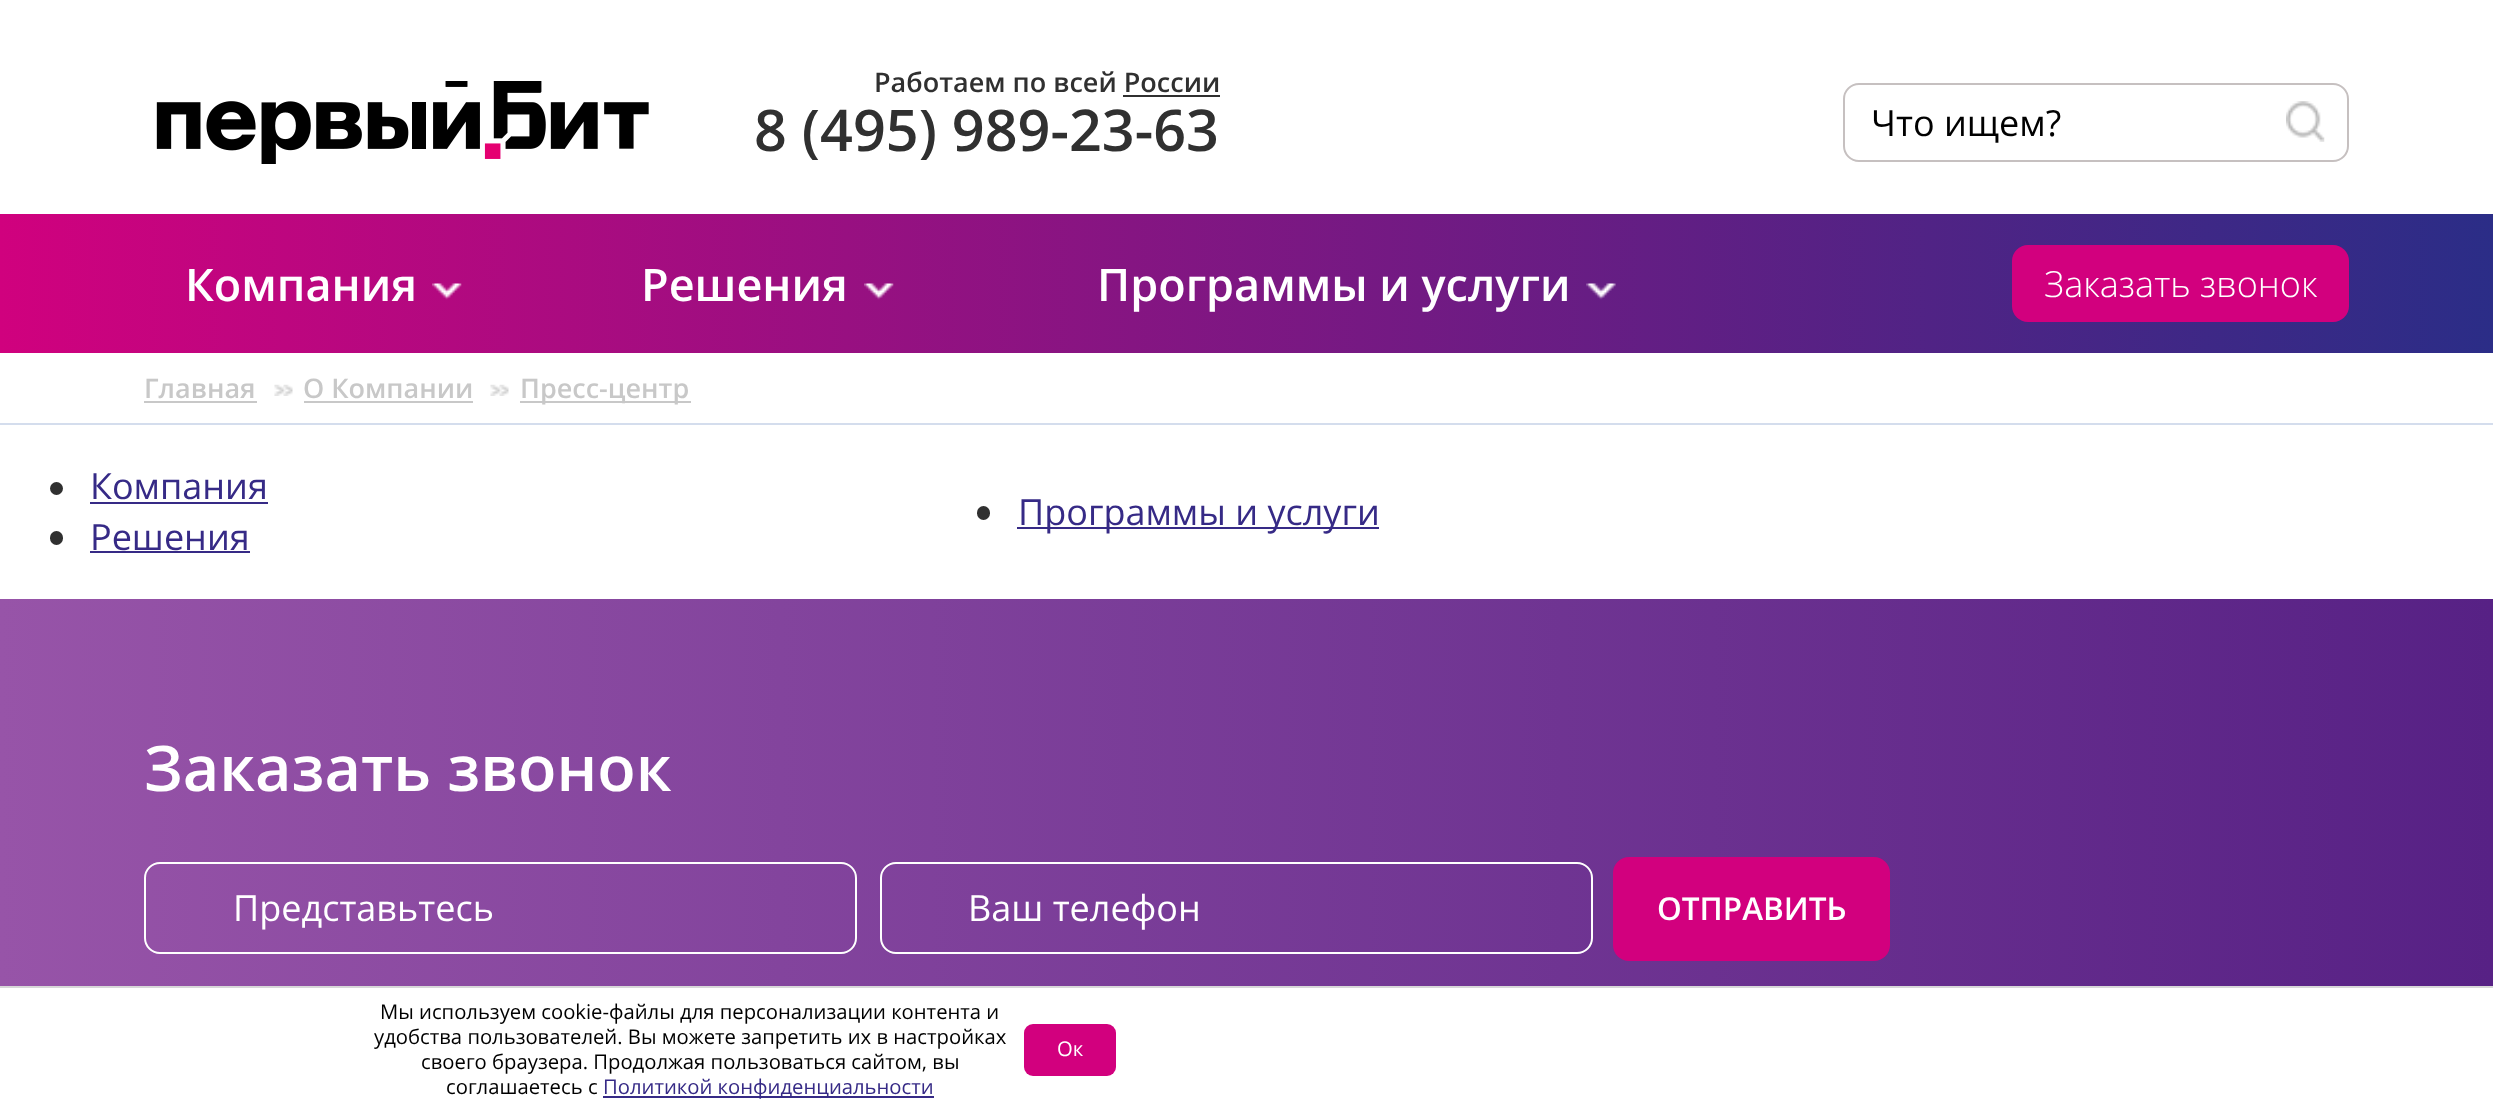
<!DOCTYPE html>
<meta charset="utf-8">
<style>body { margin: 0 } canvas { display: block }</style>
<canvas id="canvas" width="2493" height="1109"></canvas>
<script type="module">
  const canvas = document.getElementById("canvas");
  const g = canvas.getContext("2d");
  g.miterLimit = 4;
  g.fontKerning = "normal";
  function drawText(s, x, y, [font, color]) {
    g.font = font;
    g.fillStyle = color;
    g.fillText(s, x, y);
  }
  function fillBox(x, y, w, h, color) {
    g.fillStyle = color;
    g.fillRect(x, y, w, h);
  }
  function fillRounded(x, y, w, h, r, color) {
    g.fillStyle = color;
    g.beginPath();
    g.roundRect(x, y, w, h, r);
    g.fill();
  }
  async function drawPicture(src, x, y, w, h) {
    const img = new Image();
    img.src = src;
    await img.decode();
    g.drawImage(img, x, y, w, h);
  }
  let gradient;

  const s1 = ["600 27px Open Sans", "#303030"];
  const s2 = ["600 57.5px Open Sans", "#303030"];
  const s3 = ["36px Open Sans", "#000000"];
  const s4 = ["600 45px Open Sans", "#FFFFFF"];
  const s5 = ["300 36px Open Sans", "#FFFFFF"];
  const s6 = ["600 27px Open Sans", "#C8C8C8"];
  const s7 = ["36px Open Sans", "#362A86"];
  const s8 = ["600 63px Open Sans", "#FFFFFF"];
  const s9 = ["36px Open Sans", "#FFFFFF"];
  const s10 = ["600 31.5px Open Sans", "#FFFFFF"];
  const s11 = ["20.25px Open Sans", "#000000"];
  const s12 = ["20.25px Open Sans", "#362A86"];
  const s13 = ["20.25px Open Sans", "#FFFFFF"];

  fillBox(0, 0, 2493, 1109, "#FFFFFF");
  await drawPicture("pic1.png", 156, 81, 493, 83);
  drawText("Работаем по всей России", 874, 92, s1);
  fillBox(1123, 95, 97, 2, "#303030");
  drawText("8 (495) 989-23-63", 754, 151, s2);
  g.beginPath();
  g.roundRect(1844, 84, 504, 77, 15);
  g.strokeStyle = "#C6C0C0";
  g.lineWidth = 2;
  g.stroke();
  drawText("Что ищем?", 1871, 136, s3);
  await drawPicture("pic2.png", 2286, 101, 39, 41);
  gradient = g.createLinearGradient(0, 284, 2493, 283);
  gradient.addColorStop(0, "#D0017E");
  gradient.addColorStop(1, "#2B2D87");
  g.fillStyle = gradient;
  g.fillRect(0, 214, 2493, 139);
  drawText("Компания", 185, 301, s4);
  await drawPicture("pic3.png", 432, 283, 30, 17);
  drawText("Решения", 641, 301, s4);
  await drawPicture("pic4.png", 864, 283, 30, 17);
  drawText("Программы и услуги", 1097, 301, s4);
  await drawPicture("pic5.png", 1586, 283, 30, 17);
  fillRounded(2012, 245, 337, 77, 16, "#D2007E");
  drawText("Заказать звонок", 2044, 297, s5);
  fillBox(0, 423, 2493, 2, "#D4DDED");
  drawText("Главная", 144, 398, s6);
  fillBox(144, 401, 113, 2, "#C8C8C8");
  await drawPicture("pic6.png", 274, 384, 19, 12);
  drawText("О Компании", 303, 398, s6);
  fillBox(304, 401, 169, 2, "#C8C8C8");
  await drawPicture("pic6.png", 490, 384, 19, 12);
  fillBox(520, 401, 171, 2, "#C8C8C8");
  drawText("Пресс-центр", 520, 398, s6);
  g.fillStyle = "#303030";
  g.beginPath();
  g.arc(56.5, 488.5, 6.5, 0, Math.PI * 2);
  g.fill();
  drawText("Компания", 90, 499, s7);
  fillBox(90, 502, 178, 2, "#362A86");
  fillRounded(50, 531, 13, 14, 6.5, "#303030");
  drawText("Решения", 90, 550, s7);
  fillBox(90, 551, 160, 2, "#362A86");
  fillRounded(977, 506, 13, 14, 6.5, "#303030");
  fillBox(1017, 527, 362, 2, "#362A86");
  drawText("Программы и услуги", 1018, 525, s7);
  gradient = g.createLinearGradient(0, 926, 2493, 926);
  gradient.addColorStop(0, "#9754A8");
  gradient.addColorStop(1, "#572185");
  g.fillStyle = gradient;
  g.fillRect(0, 599, 2493, 387);
  drawText("Заказать звонок", 144, 791, s8);
  g.beginPath();
  g.roundRect(145, 863, 711, 90, 15);
  g.strokeStyle = "#FFFFFF";
  g.stroke();
  drawText("Представьтесь", 233, 921, s9);
  g.beginPath();
  g.roundRect(881, 863, 711, 90, 15);
  g.stroke();
  drawText("Ваш телефон", 968, 921, s9);
  fillRounded(1613, 857, 277, 104, 16, "#D2007E");
  drawText("ОТПРАВИТЬ", 1657, 920, s10);
  fillBox(0, 986, 2493, 2, "#D7D7D8");
  drawText("Мы используем cookie-файлы для персонализации контента и", 380, 1019, s11);
  drawText("удобства пользователей. Вы можете запретить их в настройках", 374, 1044, s11);
  drawText("своего браузера. Продолжая пользоваться сайтом, вы", 421, 1069, s11);
  drawText("соглашаетесь с", 446, 1094, s11);
  fillBox(603, 1096, 331, 2, "#362A86");
  drawText("Политикой конфиденциальности", 603, 1094, s12);
  fillRounded(1024, 1024, 92, 52, 9, "#D2007E");
  drawText("Ок", 1057, 1056, s13);
</script>
